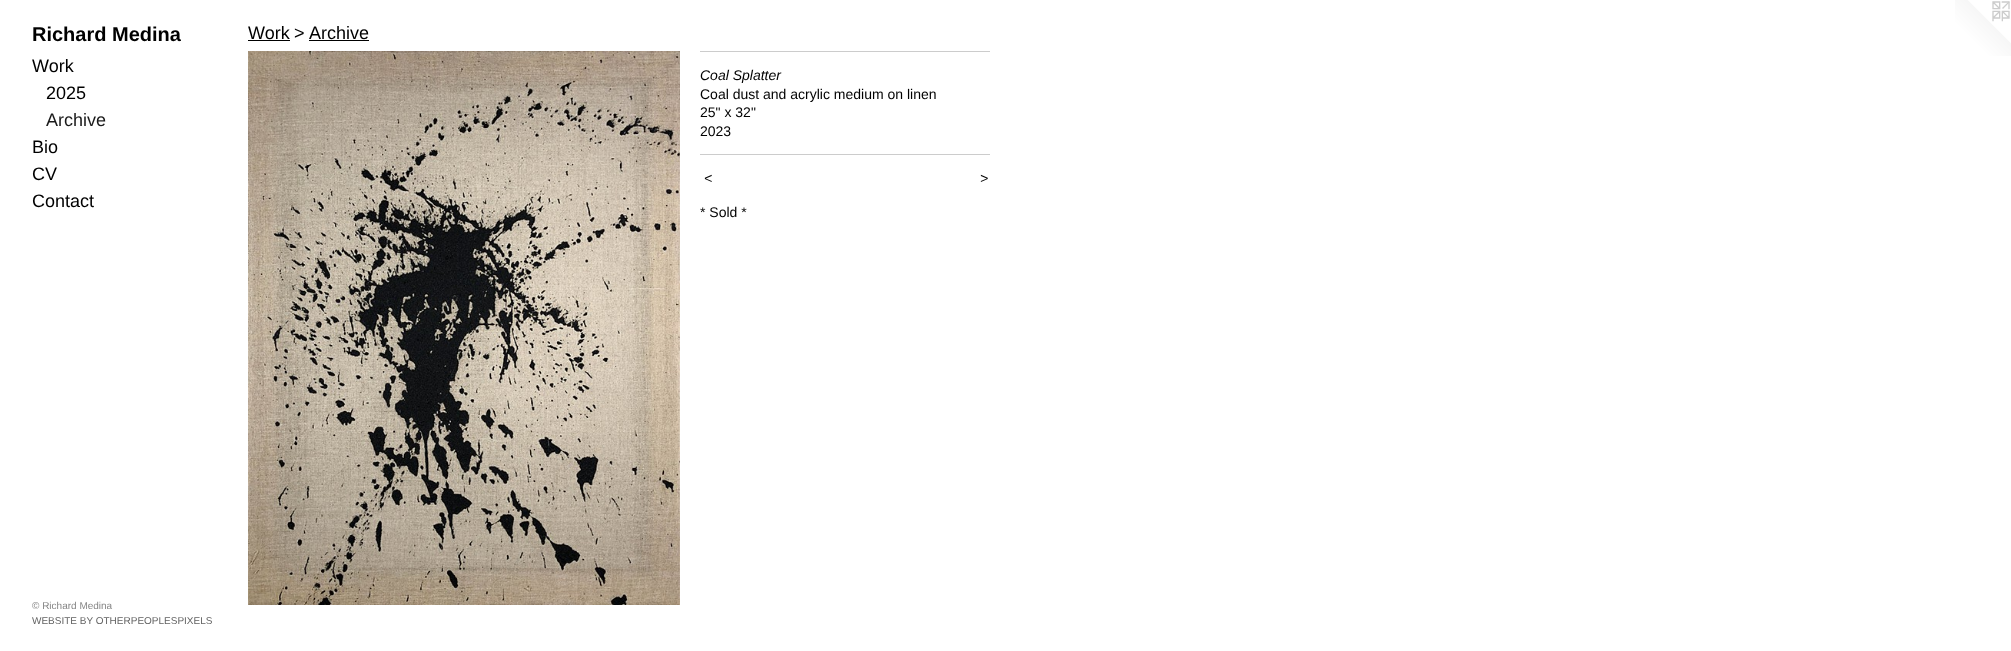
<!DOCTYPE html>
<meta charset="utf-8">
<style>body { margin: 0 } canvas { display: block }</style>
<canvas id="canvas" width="2011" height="651"></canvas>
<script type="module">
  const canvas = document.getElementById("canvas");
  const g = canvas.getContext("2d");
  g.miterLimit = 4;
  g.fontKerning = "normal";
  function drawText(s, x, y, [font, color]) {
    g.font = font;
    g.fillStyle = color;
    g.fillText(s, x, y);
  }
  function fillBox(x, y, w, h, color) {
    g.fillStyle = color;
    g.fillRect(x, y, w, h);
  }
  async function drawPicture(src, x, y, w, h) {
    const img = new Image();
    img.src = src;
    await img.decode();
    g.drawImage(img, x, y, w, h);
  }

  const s1 = ["bold 20px Liberation Sans", "#000000"];
  const s2 = ["18px Liberation Sans", "#000000"];
  const s3 = ["18px Liberation Sans", "#1A1A1A"];
  const s4 = ["10px Liberation Sans", "#858585"];
  const s5 = ["10px Liberation Sans", "#636363"];
  const s6 = ["italic 14px Liberation Sans", "#000000"];
  const s7 = ["14px Liberation Sans", "#000000"];

  fillBox(0, 0, 2011, 651, "#FFFFFF");
  drawText("Richard Medina", 32, 41, s1);
  drawText("Work", 32, 72, s2);
  drawText("2025", 46, 99, s2);
  drawText("Archive", 46, 126, s3);
  drawText("Bio", 32, 153, s2);
  drawText("CV", 32, 180, s2);
  drawText("Contact", 32, 207, s2);
  drawText("© Richard Medina", 32, 609, s4);
  drawText("WEBSITE BY OTHERPEOPLESPIXELS", 32, 624, s5);
  drawText("Work", 248, 39, s2);
  fillBox(248, 40, 42, 1, "#000000");
  drawText(">", 294, 39, s2);
  drawText("Archive", 309, 39, s2);
  fillBox(309, 40, 60, 1, "#000000");
  await drawPicture("pic1.png", 248, 51, 432, 554);
  fillBox(700, 51, 290, 1, "#CCCCCC");
  drawText("Coal Splatter", 700, 80, s6);
  drawText("Coal dust and acrylic medium on linen", 700, 99, s7);
  drawText("25\" x 32\"", 700, 117, s7);
  drawText("2023", 700, 136, s7);
  fillBox(700, 154, 290, 1, "#CCCCCC");
  g.letterSpacing = "1px";
  drawText("<", 704, 183, s6);
  drawText(">", 980, 183, s6);
  g.letterSpacing = "0px";
  drawText("* Sold *", 700, 217, s7);
  await drawPicture("pic2.png", 1955, 0, 56, 56);
</script>
